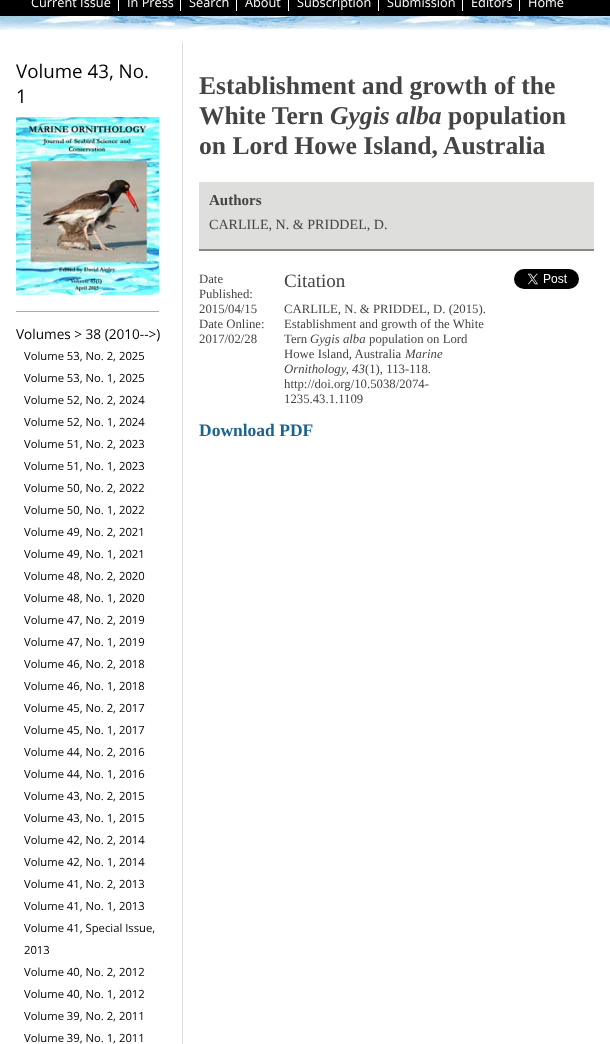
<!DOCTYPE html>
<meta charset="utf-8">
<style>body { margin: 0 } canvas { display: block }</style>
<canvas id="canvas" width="610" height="1044"></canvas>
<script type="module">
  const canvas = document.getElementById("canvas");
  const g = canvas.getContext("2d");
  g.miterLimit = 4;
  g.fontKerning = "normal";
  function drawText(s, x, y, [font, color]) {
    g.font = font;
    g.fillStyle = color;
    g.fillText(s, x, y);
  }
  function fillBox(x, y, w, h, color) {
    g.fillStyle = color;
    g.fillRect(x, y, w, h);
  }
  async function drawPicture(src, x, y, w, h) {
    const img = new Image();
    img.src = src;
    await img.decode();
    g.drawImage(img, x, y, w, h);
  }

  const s1 = ["12.75px Open Sans", "#FFFFFF"];
  const s2 = ["18.75px Open Sans", "#000000"];
  const s3 = ["13.6px Open Sans", "#000000"];
  const s4 = ["11.25px Open Sans", "#000000"];
  const s5 = ["bold 25.6px Liberation Serif", "#444444"];
  const s6 = ["italic bold 25.6px Liberation Serif", "#444444"];
  const s7 = ["bold 15px Liberation Serif", "#444444"];
  const s8 = ["14.1px Liberation Serif", "#444444"];
  const s9 = ["12.75px Liberation Serif", "#444444"];
  const s10 = ["19px Liberation Serif", "#444444"];
  const s11 = ["italic 12.75px Liberation Serif", "#444444"];
  const s12 = ["bold 17.5px Liberation Serif", "#1C6489"];

  fillBox(0, 0, 610, 1044, "#FFFFFF");
  fillBox(0, 0, 610, 16, "#000000");
  fillBox(118, 0, 1, 11, "#FFFFFF");
  drawText("Current Issue", 31, 7, s1);
  fillBox(180, 0, 1, 11, "#FFFFFF");
  drawText("In Press", 127, 7, s1);
  fillBox(236, 0, 1, 11, "#FFFFFF");
  drawText("Search", 189, 7, s1);
  fillBox(288, 0, 1, 11, "#FFFFFF");
  drawText("About", 245, 7, s1);
  fillBox(378, 0, 1, 11, "#FFFFFF");
  drawText("Subscription", 297, 7, s1);
  fillBox(462, 0, 1, 11, "#FFFFFF");
  drawText("Submission", 387, 7, s1);
  fillBox(519, 0, 1, 11, "#FFFFFF");
  drawText("Editors", 471, 7, s1);
  drawText("Home", 528, 7, s1);
  await drawPicture("pic1.png", 0, 16, 610, 14);
  fillBox(182, 42, 1, 1002, "#DDDDDD");
  fillBox(16, 311, 143, 1, "#AAAAAA");
  drawText("Volume 43, No.", 16, 78, s2);
  drawText("1", 16, 103, s2);
  await drawPicture("pic2.png", 16, 117, 143, 178);
  drawText("Volumes > 38 (2010-->)", 16, 339, s3);
  drawText("Volume 53, No. 2, 2025", 24, 360, s4);
  drawText("Volume 53, No. 1, 2025", 24, 382, s4);
  drawText("Volume 52, No. 2, 2024", 24, 404, s4);
  drawText("Volume 52, No. 1, 2024", 24, 426, s4);
  drawText("Volume 51, No. 2, 2023", 24, 448, s4);
  drawText("Volume 51, No. 1, 2023", 24, 470, s4);
  drawText("Volume 50, No. 2, 2022", 24, 492, s4);
  drawText("Volume 50, No. 1, 2022", 24, 514, s4);
  drawText("Volume 49, No. 2, 2021", 24, 536, s4);
  drawText("Volume 49, No. 1, 2021", 24, 558, s4);
  drawText("Volume 48, No. 2, 2020", 24, 580, s4);
  drawText("Volume 48, No. 1, 2020", 24, 602, s4);
  drawText("Volume 47, No. 2, 2019", 24, 624, s4);
  drawText("Volume 47, No. 1, 2019", 24, 646, s4);
  drawText("Volume 46, No. 2, 2018", 24, 668, s4);
  drawText("Volume 46, No. 1, 2018", 24, 690, s4);
  drawText("Volume 45, No. 2, 2017", 24, 712, s4);
  drawText("Volume 45, No. 1, 2017", 24, 734, s4);
  drawText("Volume 44, No. 2, 2016", 24, 756, s4);
  drawText("Volume 44, No. 1, 2016", 24, 778, s4);
  drawText("Volume 43, No. 2, 2015", 24, 800, s4);
  drawText("Volume 43, No. 1, 2015", 24, 822, s4);
  drawText("Volume 42, No. 2, 2014", 24, 844, s4);
  drawText("Volume 42, No. 1, 2014", 24, 866, s4);
  drawText("Volume 41, No. 2, 2013", 24, 888, s4);
  drawText("Volume 41, No. 1, 2013", 24, 910, s4);
  drawText("Volume 41, Special Issue,", 24, 932, s4);
  drawText("2013", 24, 954, s4);
  drawText("Volume 40, No. 2, 2012", 24, 976, s4);
  drawText("Volume 40, No. 1, 2012", 24, 998, s4);
  drawText("Volume 39, No. 2, 2011", 24, 1020, s4);
  drawText("Volume 39, No. 1, 2011", 24, 1042, s4);
  drawText("Establishment and growth of the", 199, 94, s5);
  drawText("White Tern", 199, 124, s5);
  drawText("Gygis alba", 330, 124, s6);
  drawText("population", 448, 124, s5);
  drawText("on Lord Howe Island, Australia", 199, 154, s5);
  fillBox(199, 182, 395, 67, "#DEDEDD");
  fillBox(199, 249, 395, 2, "#888888");
  drawText("Authors", 209, 205, s7);
  drawText("CARLILE, N. & PRIDDEL, D.", 209, 229, s8);
  drawText("Date", 199, 283, s9);
  drawText("Published:", 199, 298, s9);
  drawText("2015/04/15", 199, 313, s9);
  drawText("Citation", 284, 287, s10);
  drawText("CARLILE, N. & PRIDDEL, D. (2015).", 284, 313, s9);
  drawText("Establishment and growth of the White", 284, 328, s9);
  drawText("Tern", 284, 343, s9);
  drawText("Gygis alba", 310, 343, s11);
  drawText("population on Lord", 369, 343, s9);
  drawText("Howe Island, Australia", 284, 358, s9);
  drawText("Marine", 405, 358, s11);
  drawText("Ornithology, 43", 284, 373, s11);
  drawText("(1), 113-118.", 365, 373, s9);
  drawText("http://doi.org/10.5038/2074-", 284, 388, s9);
  drawText("1235.43.1.1109", 284, 403, s9);
  await drawPicture("pic3.png", 514, 269, 65, 20);
  drawText("Date Online:", 199, 328, s9);
  drawText("2017/02/28", 199, 343, s9);
  drawText("Download PDF", 199, 436, s12);
</script>
